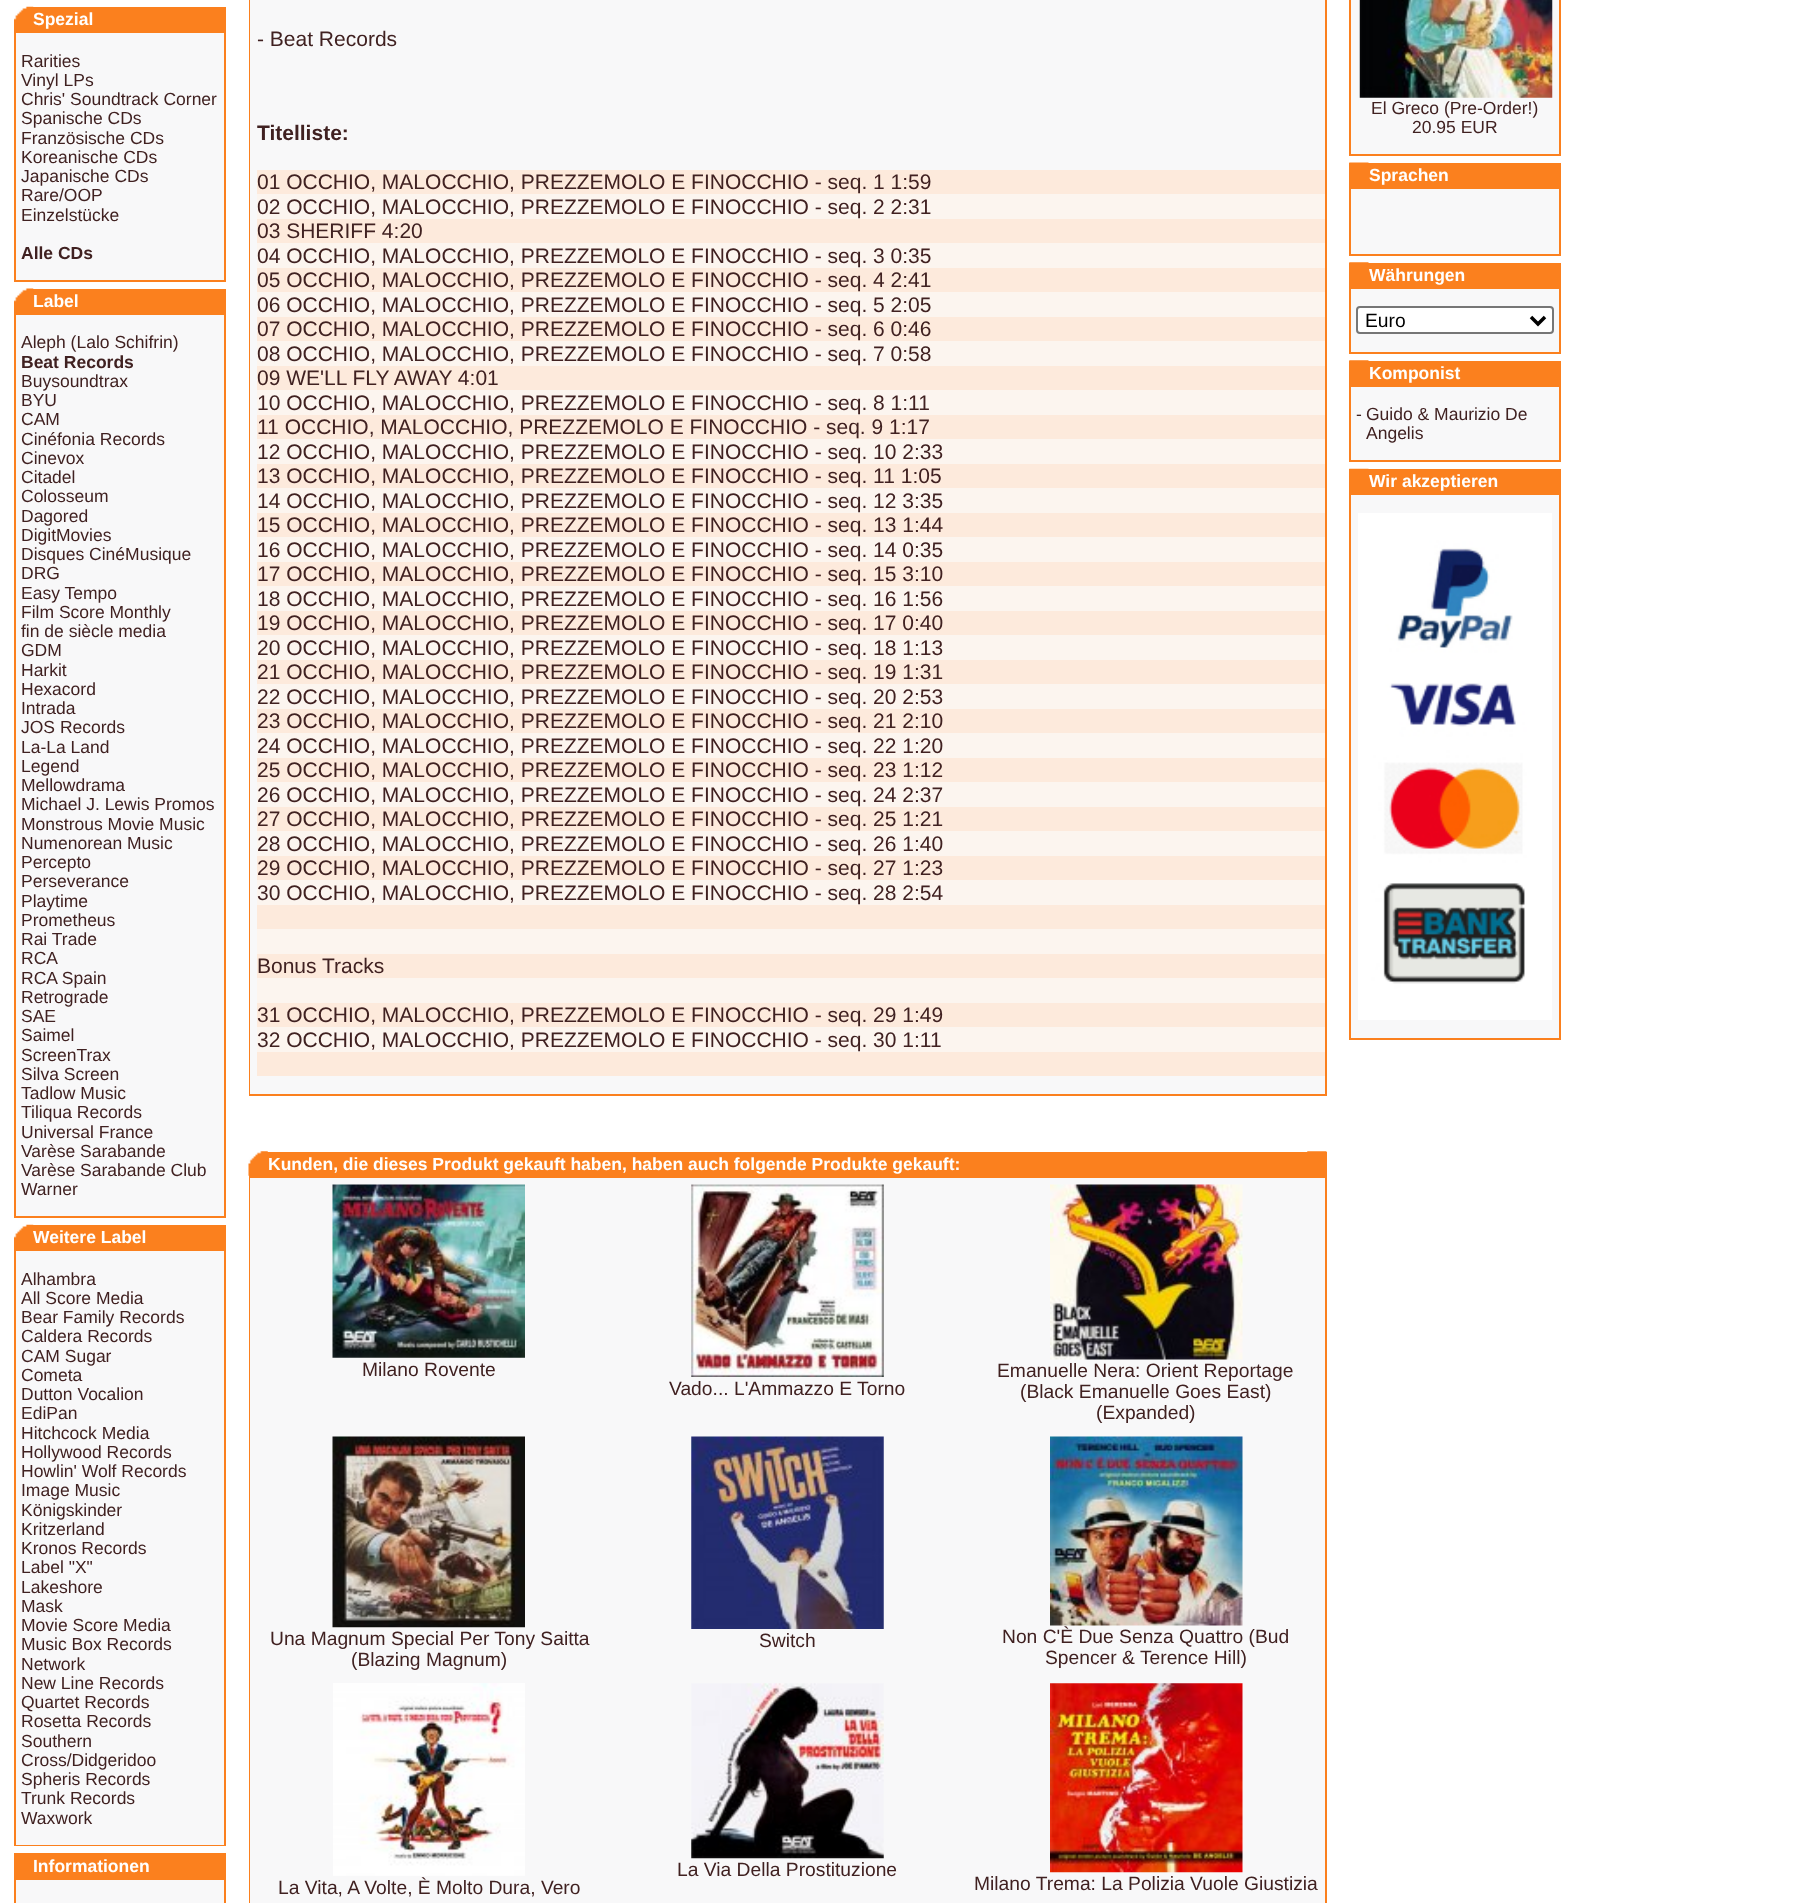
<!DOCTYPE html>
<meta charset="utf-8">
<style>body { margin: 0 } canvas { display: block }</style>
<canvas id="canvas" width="1807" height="1903"></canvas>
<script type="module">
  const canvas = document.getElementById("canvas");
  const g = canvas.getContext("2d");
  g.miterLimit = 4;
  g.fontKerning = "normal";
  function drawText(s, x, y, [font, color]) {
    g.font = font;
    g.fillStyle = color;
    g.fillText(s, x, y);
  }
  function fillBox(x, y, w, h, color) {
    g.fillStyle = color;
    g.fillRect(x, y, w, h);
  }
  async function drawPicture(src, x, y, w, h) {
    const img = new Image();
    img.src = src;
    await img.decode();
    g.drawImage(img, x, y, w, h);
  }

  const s1 = ["bold 17.5px Liberation Sans", "#FFFFFF"];
  const s2 = ["17.5px Liberation Sans", "#402121"];
  const s3 = ["bold 17.5px Liberation Sans", "#402121"];
  const s4 = ["21px Liberation Sans", "#402121"];
  const s5 = ["bold 21px Liberation Sans", "#402121"];
  const s6 = ["19.25px Liberation Sans", "#402121"];
  const s7 = ["19.25px Liberation Sans", "#000000"];

  fillBox(0, 0, 1807, 1903, "#FFFFFF");
  fillBox(14, 20, 19, 12, "#FB801E");
  fillBox(33, 7, 193, 25, "#FB801E");
  await drawPicture("pic1.png", 14, 6, 20, 14);
  drawText("Spezial", 33, 25, s1);
  fillBox(14, 32, 212, 250, "#FB801E");
  fillBox(16, 33, 208, 247, "#F8F8F9");
  drawText("Rarities", 21, 67, s2);
  drawText("Vinyl LPs", 21, 86, s2);
  drawText("Chris' Soundtrack Corner", 21, 105, s2);
  drawText("Spanische CDs", 21, 124, s2);
  drawText("Französische CDs", 21, 144, s2);
  drawText("Koreanische CDs", 21, 163, s2);
  drawText("Japanische CDs", 21, 182, s2);
  drawText("Rare/OOP", 21, 201, s2);
  drawText("Einzelstücke", 21, 221, s2);
  drawText("Alle CDs", 21, 259, s3);
  fillBox(14, 302, 19, 11, "#FB801E");
  fillBox(33, 289, 193, 24, "#FB801E");
  await drawPicture("pic2.png", 14, 288, 20, 14);
  drawText("Label", 33, 307, s1);
  fillBox(14, 313, 212, 905, "#FB801E");
  fillBox(16, 315, 208, 901, "#F8F8F9");
  drawText("Aleph (Lalo Schifrin)", 21, 348, s2);
  drawText("Beat Records", 21, 368, s3);
  drawText("Buysoundtrax", 21, 387, s2);
  drawText("BYU", 21, 406, s2);
  drawText("CAM", 21, 425, s2);
  drawText("Cinéfonia Records", 21, 445, s2);
  drawText("Cinevox", 21, 464, s2);
  drawText("Citadel", 21, 483, s2);
  drawText("Colosseum", 21, 502, s2);
  drawText("Dagored", 21, 522, s2);
  drawText("DigitMovies", 21, 541, s2);
  drawText("Disques CinéMusique", 21, 560, s2);
  drawText("DRG", 21, 579, s2);
  drawText("Easy Tempo", 21, 599, s2);
  drawText("Film Score Monthly", 21, 618, s2);
  drawText("fin de siècle media", 21, 637, s2);
  drawText("GDM", 21, 656, s2);
  drawText("Harkit", 21, 676, s2);
  drawText("Hexacord", 21, 695, s2);
  drawText("Intrada", 21, 714, s2);
  drawText("JOS Records", 21, 733, s2);
  drawText("La-La Land", 21, 753, s2);
  drawText("Legend", 21, 772, s2);
  drawText("Mellowdrama", 21, 791, s2);
  drawText("Michael J. Lewis Promos", 21, 810, s2);
  drawText("Monstrous Movie Music", 21, 830, s2);
  drawText("Numenorean Music", 21, 849, s2);
  drawText("Percepto", 21, 868, s2);
  drawText("Perseverance", 21, 887, s2);
  drawText("Playtime", 21, 907, s2);
  drawText("Prometheus", 21, 926, s2);
  drawText("Rai Trade", 21, 945, s2);
  drawText("RCA", 21, 964, s2);
  drawText("RCA Spain", 21, 984, s2);
  drawText("Retrograde", 21, 1003, s2);
  drawText("SAE", 21, 1022, s2);
  drawText("Saimel", 21, 1041, s2);
  drawText("ScreenTrax", 21, 1061, s2);
  drawText("Silva Screen", 21, 1080, s2);
  drawText("Tadlow Music", 21, 1099, s2);
  drawText("Tiliqua Records", 21, 1118, s2);
  drawText("Universal France", 21, 1138, s2);
  drawText("Varèse Sarabande", 21, 1157, s2);
  drawText("Varèse Sarabande Club", 21, 1176, s2);
  drawText("Warner", 21, 1195, s2);
  fillBox(14, 1238, 19, 12, "#FB801E");
  fillBox(33, 1225, 193, 25, "#FB801E");
  await drawPicture("pic1.png", 14, 1224, 20, 14);
  drawText("Weitere Label", 33, 1243, s1);
  fillBox(14, 1250, 212, 596, "#FB801E");
  fillBox(16, 1251, 208, 594, "#F8F8F9");
  drawText("Alhambra", 21, 1285, s2);
  drawText("All Score Media", 21, 1304, s2);
  drawText("Bear Family Records", 21, 1323, s2);
  drawText("Caldera Records", 21, 1342, s2);
  drawText("CAM Sugar", 21, 1362, s2);
  drawText("Cometa", 21, 1381, s2);
  drawText("Dutton Vocalion", 21, 1400, s2);
  drawText("EdiPan", 21, 1419, s2);
  drawText("Hitchcock Media", 21, 1439, s2);
  drawText("Hollywood Records", 21, 1458, s2);
  drawText("Howlin' Wolf Records", 21, 1477, s2);
  drawText("Image Music", 21, 1496, s2);
  drawText("Königskinder", 21, 1516, s2);
  drawText("Kritzerland", 21, 1535, s2);
  drawText("Kronos Records", 21, 1554, s2);
  drawText("Label \"X\"", 21, 1573, s2);
  drawText("Lakeshore", 21, 1593, s2);
  drawText("Mask", 21, 1612, s2);
  drawText("Movie Score Media", 21, 1631, s2);
  drawText("Music Box Records", 21, 1650, s2);
  drawText("Network", 21, 1670, s2);
  drawText("New Line Records", 21, 1689, s2);
  drawText("Quartet Records", 21, 1708, s2);
  drawText("Rosetta Records", 21, 1727, s2);
  drawText("Southern", 21, 1747, s2);
  drawText("Cross/Didgeridoo", 21, 1766, s2);
  drawText("Spheris Records", 21, 1785, s2);
  drawText("Trunk Records", 21, 1804, s2);
  drawText("Waxwork", 21, 1824, s2);
  fillBox(14, 1853, 212, 50, "#FB801E");
  drawText("Informationen", 33, 1872, s1);
  fillBox(16, 1880, 208, 23, "#F8F8F9");
  fillBox(249, 0, 1078, 1096, "#FB801E");
  fillBox(250, 0, 1075, 1094, "#F8F8F9");
  drawText("- Beat Records", 257, 46, s4);
  drawText("Titelliste:", 257, 140, s5);
  fillBox(257, 170, 1068, 24, "#FDEADC");
  drawText("01 OCCHIO, MALOCCHIO, PREZZEMOLO E FINOCCHIO - seq. 1 1:59", 257, 189, s4);
  fillBox(257, 194, 1068, 25, "#FCF5EF");
  drawText("02 OCCHIO, MALOCCHIO, PREZZEMOLO E FINOCCHIO - seq. 2 2:31", 257, 214, s4);
  fillBox(257, 219, 1068, 24, "#FDEADC");
  drawText("03 SHERIFF 4:20", 257, 238, s4);
  fillBox(257, 243, 1068, 25, "#FCF5EF");
  drawText("04 OCCHIO, MALOCCHIO, PREZZEMOLO E FINOCCHIO - seq. 3 0:35", 257, 263, s4);
  fillBox(257, 268, 1068, 24, "#FDEADC");
  drawText("05 OCCHIO, MALOCCHIO, PREZZEMOLO E FINOCCHIO - seq. 4 2:41", 257, 287, s4);
  fillBox(257, 292, 1068, 25, "#FCF5EF");
  drawText("06 OCCHIO, MALOCCHIO, PREZZEMOLO E FINOCCHIO - seq. 5 2:05", 257, 312, s4);
  fillBox(257, 317, 1068, 24, "#FDEADC");
  drawText("07 OCCHIO, MALOCCHIO, PREZZEMOLO E FINOCCHIO - seq. 6 0:46", 257, 336, s4);
  fillBox(257, 341, 1068, 25, "#FCF5EF");
  drawText("08 OCCHIO, MALOCCHIO, PREZZEMOLO E FINOCCHIO - seq. 7 0:58", 257, 361, s4);
  fillBox(257, 366, 1068, 24, "#FDEADC");
  drawText("09 WE'LL FLY AWAY 4:01", 257, 385, s4);
  fillBox(257, 390, 1068, 25, "#FCF5EF");
  drawText("10 OCCHIO, MALOCCHIO, PREZZEMOLO E FINOCCHIO - seq. 8 1:11", 257, 410, s4);
  fillBox(257, 415, 1068, 24, "#FDEADC");
  drawText("11 OCCHIO, MALOCCHIO, PREZZEMOLO E FINOCCHIO - seq. 9 1:17", 257, 434, s4);
  fillBox(257, 439, 1068, 25, "#FCF5EF");
  drawText("12 OCCHIO, MALOCCHIO, PREZZEMOLO E FINOCCHIO - seq. 10 2:33", 257, 459, s4);
  fillBox(257, 464, 1068, 24, "#FDEADC");
  drawText("13 OCCHIO, MALOCCHIO, PREZZEMOLO E FINOCCHIO - seq. 11 1:05", 257, 483, s4);
  fillBox(257, 488, 1068, 25, "#FCF5EF");
  drawText("14 OCCHIO, MALOCCHIO, PREZZEMOLO E FINOCCHIO - seq. 12 3:35", 257, 508, s4);
  fillBox(257, 513, 1068, 24, "#FDEADC");
  drawText("15 OCCHIO, MALOCCHIO, PREZZEMOLO E FINOCCHIO - seq. 13 1:44", 257, 532, s4);
  fillBox(257, 537, 1068, 25, "#FCF5EF");
  drawText("16 OCCHIO, MALOCCHIO, PREZZEMOLO E FINOCCHIO - seq. 14 0:35", 257, 557, s4);
  fillBox(257, 562, 1068, 24, "#FDEADC");
  drawText("17 OCCHIO, MALOCCHIO, PREZZEMOLO E FINOCCHIO - seq. 15 3:10", 257, 581, s4);
  fillBox(257, 586, 1068, 25, "#FCF5EF");
  drawText("18 OCCHIO, MALOCCHIO, PREZZEMOLO E FINOCCHIO - seq. 16 1:56", 257, 606, s4);
  fillBox(257, 611, 1068, 24, "#FDEADC");
  drawText("19 OCCHIO, MALOCCHIO, PREZZEMOLO E FINOCCHIO - seq. 17 0:40", 257, 630, s4);
  fillBox(257, 635, 1068, 25, "#FCF5EF");
  drawText("20 OCCHIO, MALOCCHIO, PREZZEMOLO E FINOCCHIO - seq. 18 1:13", 257, 655, s4);
  fillBox(257, 660, 1068, 24, "#FDEADC");
  drawText("21 OCCHIO, MALOCCHIO, PREZZEMOLO E FINOCCHIO - seq. 19 1:31", 257, 679, s4);
  fillBox(257, 684, 1068, 25, "#FCF5EF");
  drawText("22 OCCHIO, MALOCCHIO, PREZZEMOLO E FINOCCHIO - seq. 20 2:53", 257, 704, s4);
  fillBox(257, 709, 1068, 24, "#FDEADC");
  drawText("23 OCCHIO, MALOCCHIO, PREZZEMOLO E FINOCCHIO - seq. 21 2:10", 257, 728, s4);
  fillBox(257, 733, 1068, 25, "#FCF5EF");
  drawText("24 OCCHIO, MALOCCHIO, PREZZEMOLO E FINOCCHIO - seq. 22 1:20", 257, 753, s4);
  fillBox(257, 758, 1068, 24, "#FDEADC");
  drawText("25 OCCHIO, MALOCCHIO, PREZZEMOLO E FINOCCHIO - seq. 23 1:12", 257, 777, s4);
  fillBox(257, 782, 1068, 25, "#FCF5EF");
  drawText("26 OCCHIO, MALOCCHIO, PREZZEMOLO E FINOCCHIO - seq. 24 2:37", 257, 802, s4);
  fillBox(257, 807, 1068, 24, "#FDEADC");
  drawText("27 OCCHIO, MALOCCHIO, PREZZEMOLO E FINOCCHIO - seq. 25 1:21", 257, 826, s4);
  fillBox(257, 831, 1068, 25, "#FCF5EF");
  drawText("28 OCCHIO, MALOCCHIO, PREZZEMOLO E FINOCCHIO - seq. 26 1:40", 257, 851, s4);
  fillBox(257, 856, 1068, 24, "#FDEADC");
  drawText("29 OCCHIO, MALOCCHIO, PREZZEMOLO E FINOCCHIO - seq. 27 1:23", 257, 875, s4);
  fillBox(257, 880, 1068, 25, "#FCF5EF");
  drawText("30 OCCHIO, MALOCCHIO, PREZZEMOLO E FINOCCHIO - seq. 28 2:54", 257, 900, s4);
  fillBox(257, 905, 1068, 24, "#FDEADC");
  fillBox(257, 929, 1068, 25, "#FCF5EF");
  fillBox(257, 954, 1068, 24, "#FDEADC");
  drawText("Bonus Tracks", 257, 973, s4);
  fillBox(257, 978, 1068, 25, "#FCF5EF");
  fillBox(257, 1003, 1068, 24, "#FDEADC");
  drawText("31 OCCHIO, MALOCCHIO, PREZZEMOLO E FINOCCHIO - seq. 29 1:49", 257, 1022, s4);
  fillBox(257, 1027, 1068, 25, "#FCF5EF");
  drawText("32 OCCHIO, MALOCCHIO, PREZZEMOLO E FINOCCHIO - seq. 30 1:11", 257, 1047, s4);
  fillBox(257, 1052, 1068, 24, "#FDEADC");
  fillBox(249, 1152, 1078, 751, "#FB801E");
  await drawPicture("pic3.png", 248, 1151, 20, 25);
  await drawPicture("pic4.png", 1307, 1151, 20, 1);
  drawText("Kunden, die dieses Produkt gekauft haben, haben auch folgende Produkte gekauft:", 268, 1170, s1);
  fillBox(250, 1178, 1075, 725, "#F8F8F9");
  await drawPicture("pic5.png", 332, 1184, 193, 174);
  drawText("Milano Rovente", 362, 1376, s6);
  await drawPicture("pic6.png", 691, 1184, 193, 193);
  drawText("Vado... L'Ammazzo E Torno", 669, 1395, s6);
  await drawPicture("pic7.png", 1050, 1184, 193, 176);
  drawText("Emanuelle Nera: Orient Reportage", 997, 1377, s6);
  drawText("(Black Emanuelle Goes East)", 1020, 1398, s6);
  drawText("(Expanded)", 1096, 1419, s6);
  await drawPicture("pic8.png", 332, 1436, 193, 192);
  drawText("Una Magnum Special Per Tony Saitta", 270, 1645, s6);
  drawText("(Blazing Magnum)", 351, 1666, s6);
  await drawPicture("pic9.png", 691, 1436, 193, 193);
  drawText("Switch", 759, 1647, s6);
  await drawPicture("pic10.png", 1050, 1436, 193, 190);
  drawText("Non C'È Due Senza Quattro (Bud", 1002, 1643, s6);
  drawText("Spencer & Terence Hill)", 1045, 1664, s6);
  await drawPicture("pic11.png", 691, 1683, 193, 176);
  drawText("La Via Della Prostituzione", 677, 1876, s6);
  await drawPicture("pic12.png", 333, 1683, 192, 193);
  drawText("La Vita, A Volte, È Molto Dura, Vero", 278, 1894, s6);
  await drawPicture("pic13.png", 1050, 1683, 193, 190);
  drawText("Milano Trema: La Polizia Vuole Giustizia", 974, 1890, s6);
  fillBox(1349, 0, 212, 156, "#FB801E");
  fillBox(1351, 0, 208, 154, "#F8F8F9");
  await drawPicture("pic14.png", 1359, 0, 194, 98);
  drawText("El Greco (Pre-Order!)", 1371, 114, s2);
  drawText("20.95 EUR", 1412, 133, s2);
  fillBox(1349, 163, 212, 93, "#FB801E");
  await drawPicture("pic15.png", 1349, 162, 20, 1);
  drawText("Sprachen", 1369, 181, s1);
  fillBox(1351, 189, 208, 65, "#F8F8F9");
  fillBox(1349, 263, 212, 91, "#FB801E");
  await drawPicture("pic4.png", 1349, 262, 20, 1);
  drawText("Währungen", 1369, 281, s1);
  fillBox(1351, 289, 208, 63, "#F8F8F9");
  g.fillStyle = "#FFFFFF";
  g.beginPath();
  g.roundRect(1357, 307, 196, 26, 3);
  g.fill();
  g.strokeStyle = "#767676";
  g.lineWidth = 2;
  g.stroke();
  g.beginPath();
  g.moveTo(1531, 317);
  g.lineTo(1538, 324);
  g.lineTo(1545, 317);
  g.strokeStyle = "#000000";
  g.lineWidth = 3.5;
  g.stroke();
  drawText("Euro", 1365, 327, s7);
  fillBox(1349, 361, 212, 101, "#FB801E");
  await drawPicture("pic4.png", 1349, 360, 20, 1);
  drawText("Komponist", 1369, 379, s1);
  fillBox(1351, 387, 208, 73, "#F8F8F9");
  drawText("-", 1356, 420, s2);
  drawText("Guido & Maurizio De", 1366, 420, s2);
  drawText("Angelis", 1366, 439, s2);
  fillBox(1349, 469, 212, 571, "#FB801E");
  await drawPicture("pic16.png", 1349, 468, 20, 1);
  drawText("Wir akzeptieren", 1369, 487, s1);
  fillBox(1351, 495, 208, 543, "#F8F8F9");
  await drawPicture("pic17.png", 1358, 513, 194, 507);
</script>
